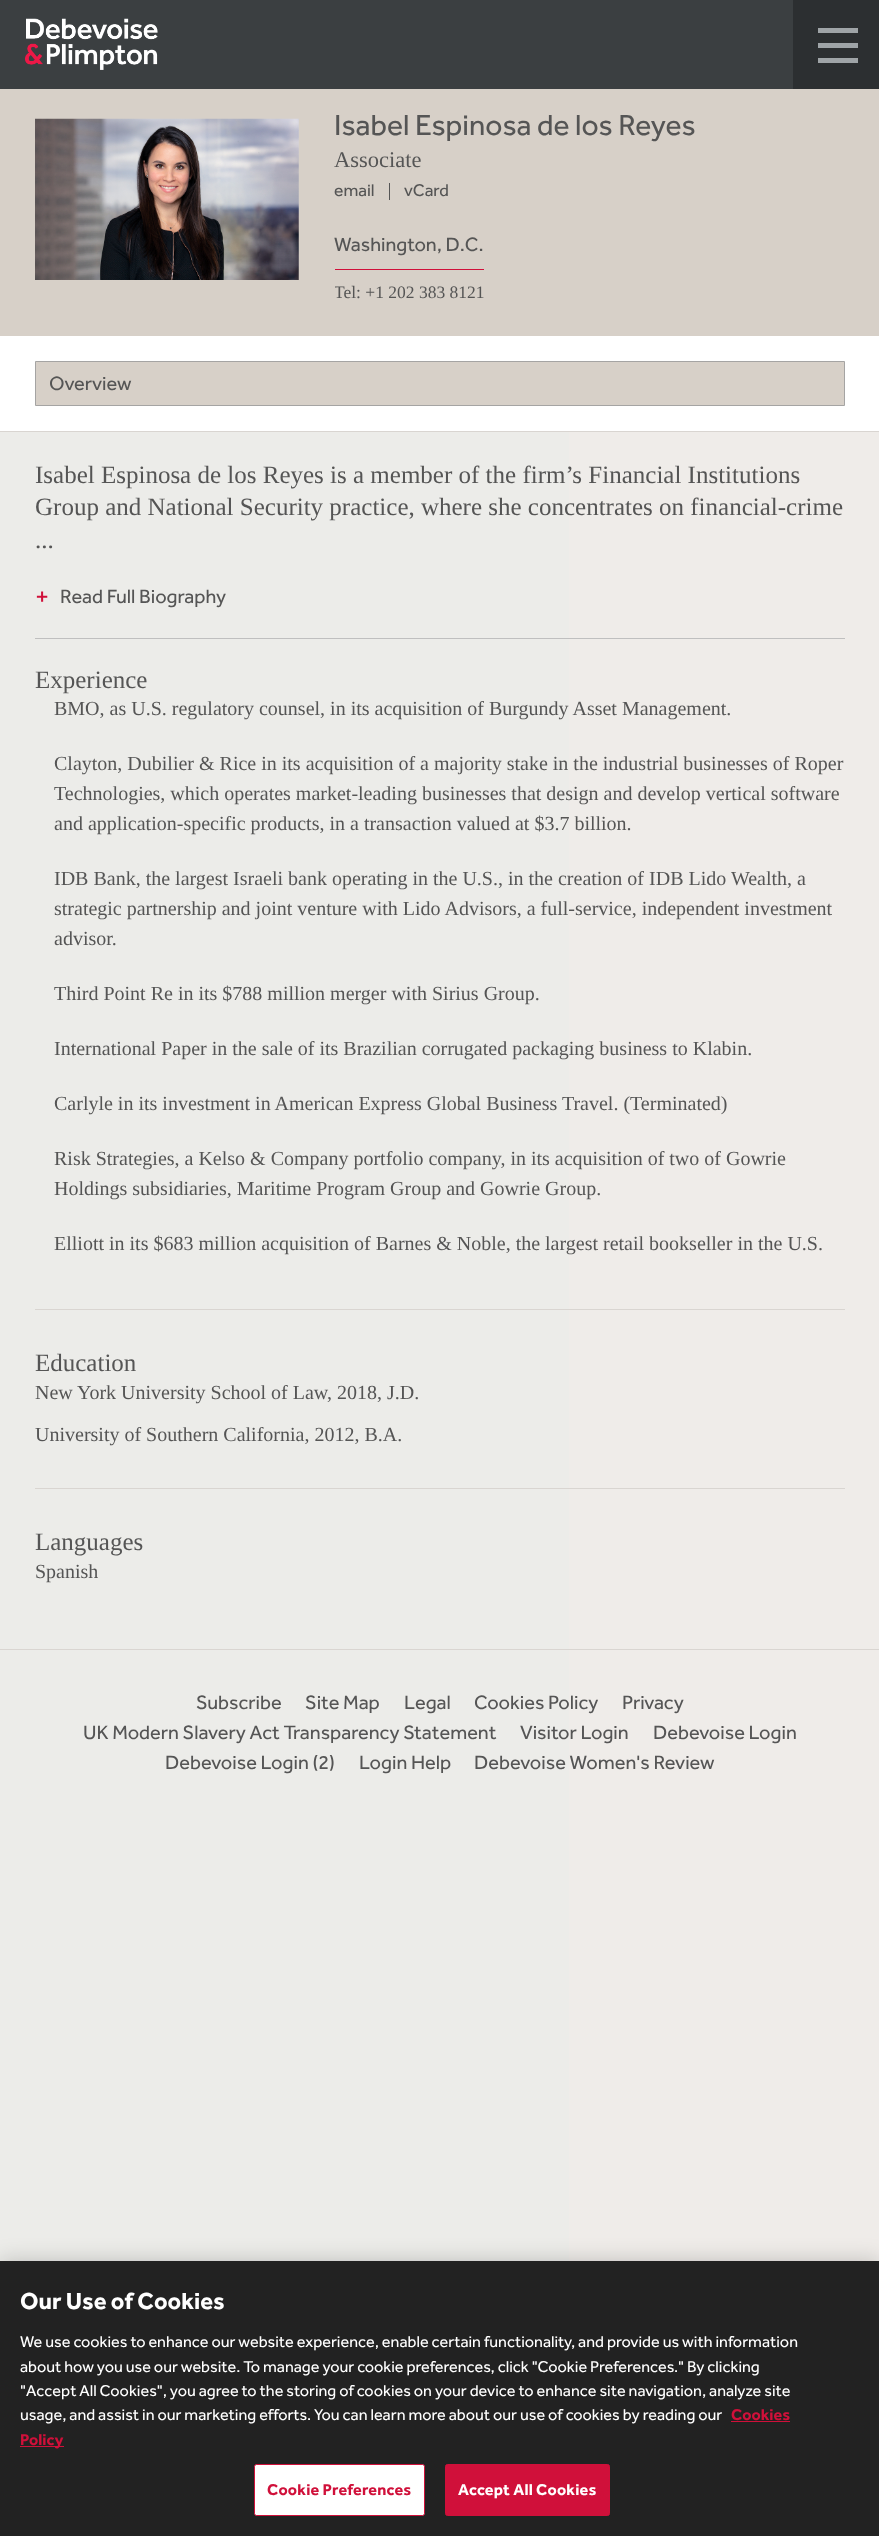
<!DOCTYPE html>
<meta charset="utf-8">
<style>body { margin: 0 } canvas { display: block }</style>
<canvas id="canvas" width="879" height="2536"></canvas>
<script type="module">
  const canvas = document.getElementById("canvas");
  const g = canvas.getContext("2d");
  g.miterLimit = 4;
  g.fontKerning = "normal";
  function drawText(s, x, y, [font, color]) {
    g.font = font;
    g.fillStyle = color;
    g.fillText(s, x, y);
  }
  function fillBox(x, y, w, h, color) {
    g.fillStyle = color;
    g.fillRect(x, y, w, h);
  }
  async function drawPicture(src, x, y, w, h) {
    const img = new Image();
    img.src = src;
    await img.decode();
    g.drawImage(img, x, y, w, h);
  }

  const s1 = ["30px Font", "#555555"];
  const s2 = ["22.5px Liberation Serif", "#555555"];
  const s3 = ["17.5px Font", "#555555"];
  const s4 = ["20px Font", "#555555"];
  const s5 = ["17.5px Liberation Serif", "#555555"];
  const s6 = ["25px Liberation Serif", "#555555"];
  const s7 = ["26px Font", "#D0103A"];
  const s8 = ["20px Liberation Serif", "#555555"];
  const s9 = ["bold 24px Font", "#FFFFFF"];
  const s10 = ["16.25px Font", "#FFFFFF"];
  const s11 = ["bold 16.25px Font", "#D0103A"];
  const s12 = ["bold 16.25px Font", "#FFFFFF"];

  fillBox(0, 0, 879, 2536, "#EFECE9");
  fillBox(0, 0, 793, 89, "#3B3F41");
  await drawPicture("pic1.png", 25, 18, 133, 52);
  fillBox(793, 0, 86, 89, "#2C2F31");
  fillBox(818, 43, 40, 5, "#9FA4A7");
  fillBox(818, 28, 40, 5, "#9FA4A7");
  fillBox(818, 58, 40, 5, "#9FA4A7");
  fillBox(0, 89, 879, 247, "#D7D0C8");
  await drawPicture("pic2.png", 35, 118, 264, 162);
  drawText("Isabel Espinosa de los Reyes", 334, 135, s1);
  drawText("Associate", 334, 167, s2);
  fillBox(389, 183, 1, 17, "#555555");
  drawText("email", 334, 196, s3);
  drawText("vCard", 404, 196, s3);
  fillBox(335, 269, 149, 1, "#D0103A");
  drawText("Washington, D.C.", 334, 251, s4);
  g.save();
  g.beginPath();
  g.rect(335, 230, 510, 88);
  g.clip();
  drawText("Tel: +1 202 383 8121", 334, 298, s5);
  g.restore();
  fillBox(0, 336, 879, 95, "#FFFFFF");
  g.fillStyle = "#D7D0C8";
  g.beginPath();
  g.rect(35.5, 361.5, 809, 44);
  g.fill();
  g.strokeStyle = "#A5A4A3";
  g.stroke();
  drawText("Overview", 49, 390, s4);
  fillBox(0, 431, 879, 1, "#D9D5D1");
  fillBox(0, 432, 569, 1829, "#ECECE9");
  fillBox(0, 1649, 879, 1, "#D9D5D1");
  fillBox(35, 638, 810, 1, "#BFBFBF");
  drawText("Isabel Espinosa de los Reyes is a member of the firm’s Financial Institutions", 35, 483, s6);
  drawText("Group and National Security practice, where she concentrates on financial-crime", 35, 515, s6);
  drawText("...", 35, 548, s6);
  drawText("+", 35, 605, s7);
  drawText("Read Full Biography", 60, 603, s4);
  fillBox(35, 1309, 810, 1, "#D9D5D1");
  drawText("Experience", 35, 688, s6);
  drawText("BMO, as U.S. regulatory counsel, in its acquisition of Burgundy Asset Management.", 54, 715, s8);
  drawText("Clayton, Dubilier & Rice in its acquisition of a majority stake in the industrial businesses of Roper", 54, 770, s8);
  drawText("Technologies, which operates market-leading businesses that design and develop vertical software", 54, 800, s8);
  drawText("and application-specific products, in a transaction valued at $3.7 billion.", 54, 830, s8);
  drawText("IDB Bank, the largest Israeli bank operating in the U.S., in the creation of IDB Lido Wealth, a", 54, 885, s8);
  drawText("strategic partnership and joint venture with Lido Advisors, a full-service, independent investment", 54, 915, s8);
  drawText("advisor.", 54, 945, s8);
  drawText("Third Point Re in its $788 million merger with Sirius Group.", 54, 1000, s8);
  drawText("International Paper in the sale of its Brazilian corrugated packaging business to Klabin.", 54, 1055, s8);
  drawText("Carlyle in its investment in American Express Global Business Travel. (Terminated)", 54, 1110, s8);
  drawText("Risk Strategies, a Kelso & Company portfolio company, in its acquisition of two of Gowrie", 54, 1165, s8);
  drawText("Holdings subsidiaries, Maritime Program Group and Gowrie Group.", 54, 1195, s8);
  drawText("Elliott in its $683 million acquisition of Barnes & Noble, the largest retail bookseller in the U.S.", 54, 1250, s8);
  fillBox(35, 1488, 810, 1, "#D9D5D1");
  drawText("Education", 35, 1371, s6);
  drawText("New York University School of Law, 2018, J.D.", 35, 1399, s8);
  drawText("University of Southern California, 2012, B.A.", 35, 1441, s8);
  drawText("Languages", 35, 1550, s6);
  drawText("Spanish", 35, 1578, s8);
  drawText("Subscribe", 196, 1709, s4);
  drawText("Site Map", 305, 1709, s4);
  drawText("Legal", 404, 1709, s4);
  drawText("Cookies Policy", 474, 1709, s4);
  drawText("Privacy", 622, 1709, s4);
  drawText("UK Modern Slavery Act Transparency Statement", 83, 1739, s4);
  drawText("Visitor Login", 520, 1739, s4);
  drawText("Debevoise Login", 653, 1739, s4);
  drawText("Debevoise Login (2)", 165, 1769, s4);
  drawText("Login Help", 359, 1769, s4);
  drawText("Debevoise Women's Review", 474, 1769, s4);
  g.fillStyle = "rgba(0, 0, 0, 0.2)";
  g.filter = "blur(11px)";
  g.beginPath();
  g.rect(0, 2261, 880, 275);
  g.fill();
  g.filter = "none";
  fillBox(0, 2261, 879, 275, "#222222");
  drawText("Our Use of Cookies", 20, 2309, s9);
  drawText("We use cookies to enhance our website experience, enable certain functionality, and provide us with information", 20, 2347, s10);
  drawText("about how you use our website. To manage your cookie preferences, click \"Cookie Preferences.\" By clicking", 20, 2372, s10);
  drawText("\"Accept All Cookies\", you agree to the storing of cookies on your device to enhance site navigation, analyze site", 20, 2396, s10);
  drawText("usage, and assist in our marketing efforts. You can learn more about our use of cookies by reading our", 20, 2420, s10);
  drawText("Cookies", 731, 2420, s11);
  fillBox(731, 2421, 59, 1, "#D0103A");
  fillBox(20, 2446, 44, 1, "#D0103A");
  drawText("Policy", 20, 2445, s11);
  g.fillStyle = "#FFFFFF";
  g.beginPath();
  g.roundRect(254.5, 2464.5, 170, 51, 2);
  g.fill();
  g.strokeStyle = "#D0103A";
  g.stroke();
  g.letterSpacing = "0.2px";
  drawText("Cookie Preferences", 267, 2495, s11);
  g.beginPath();
  g.roundRect(445.5, 2464.5, 164, 51, 2);
  g.fill();
  g.stroke();
  drawText("Accept All Cookies", 458, 2495, s12);
</script>
